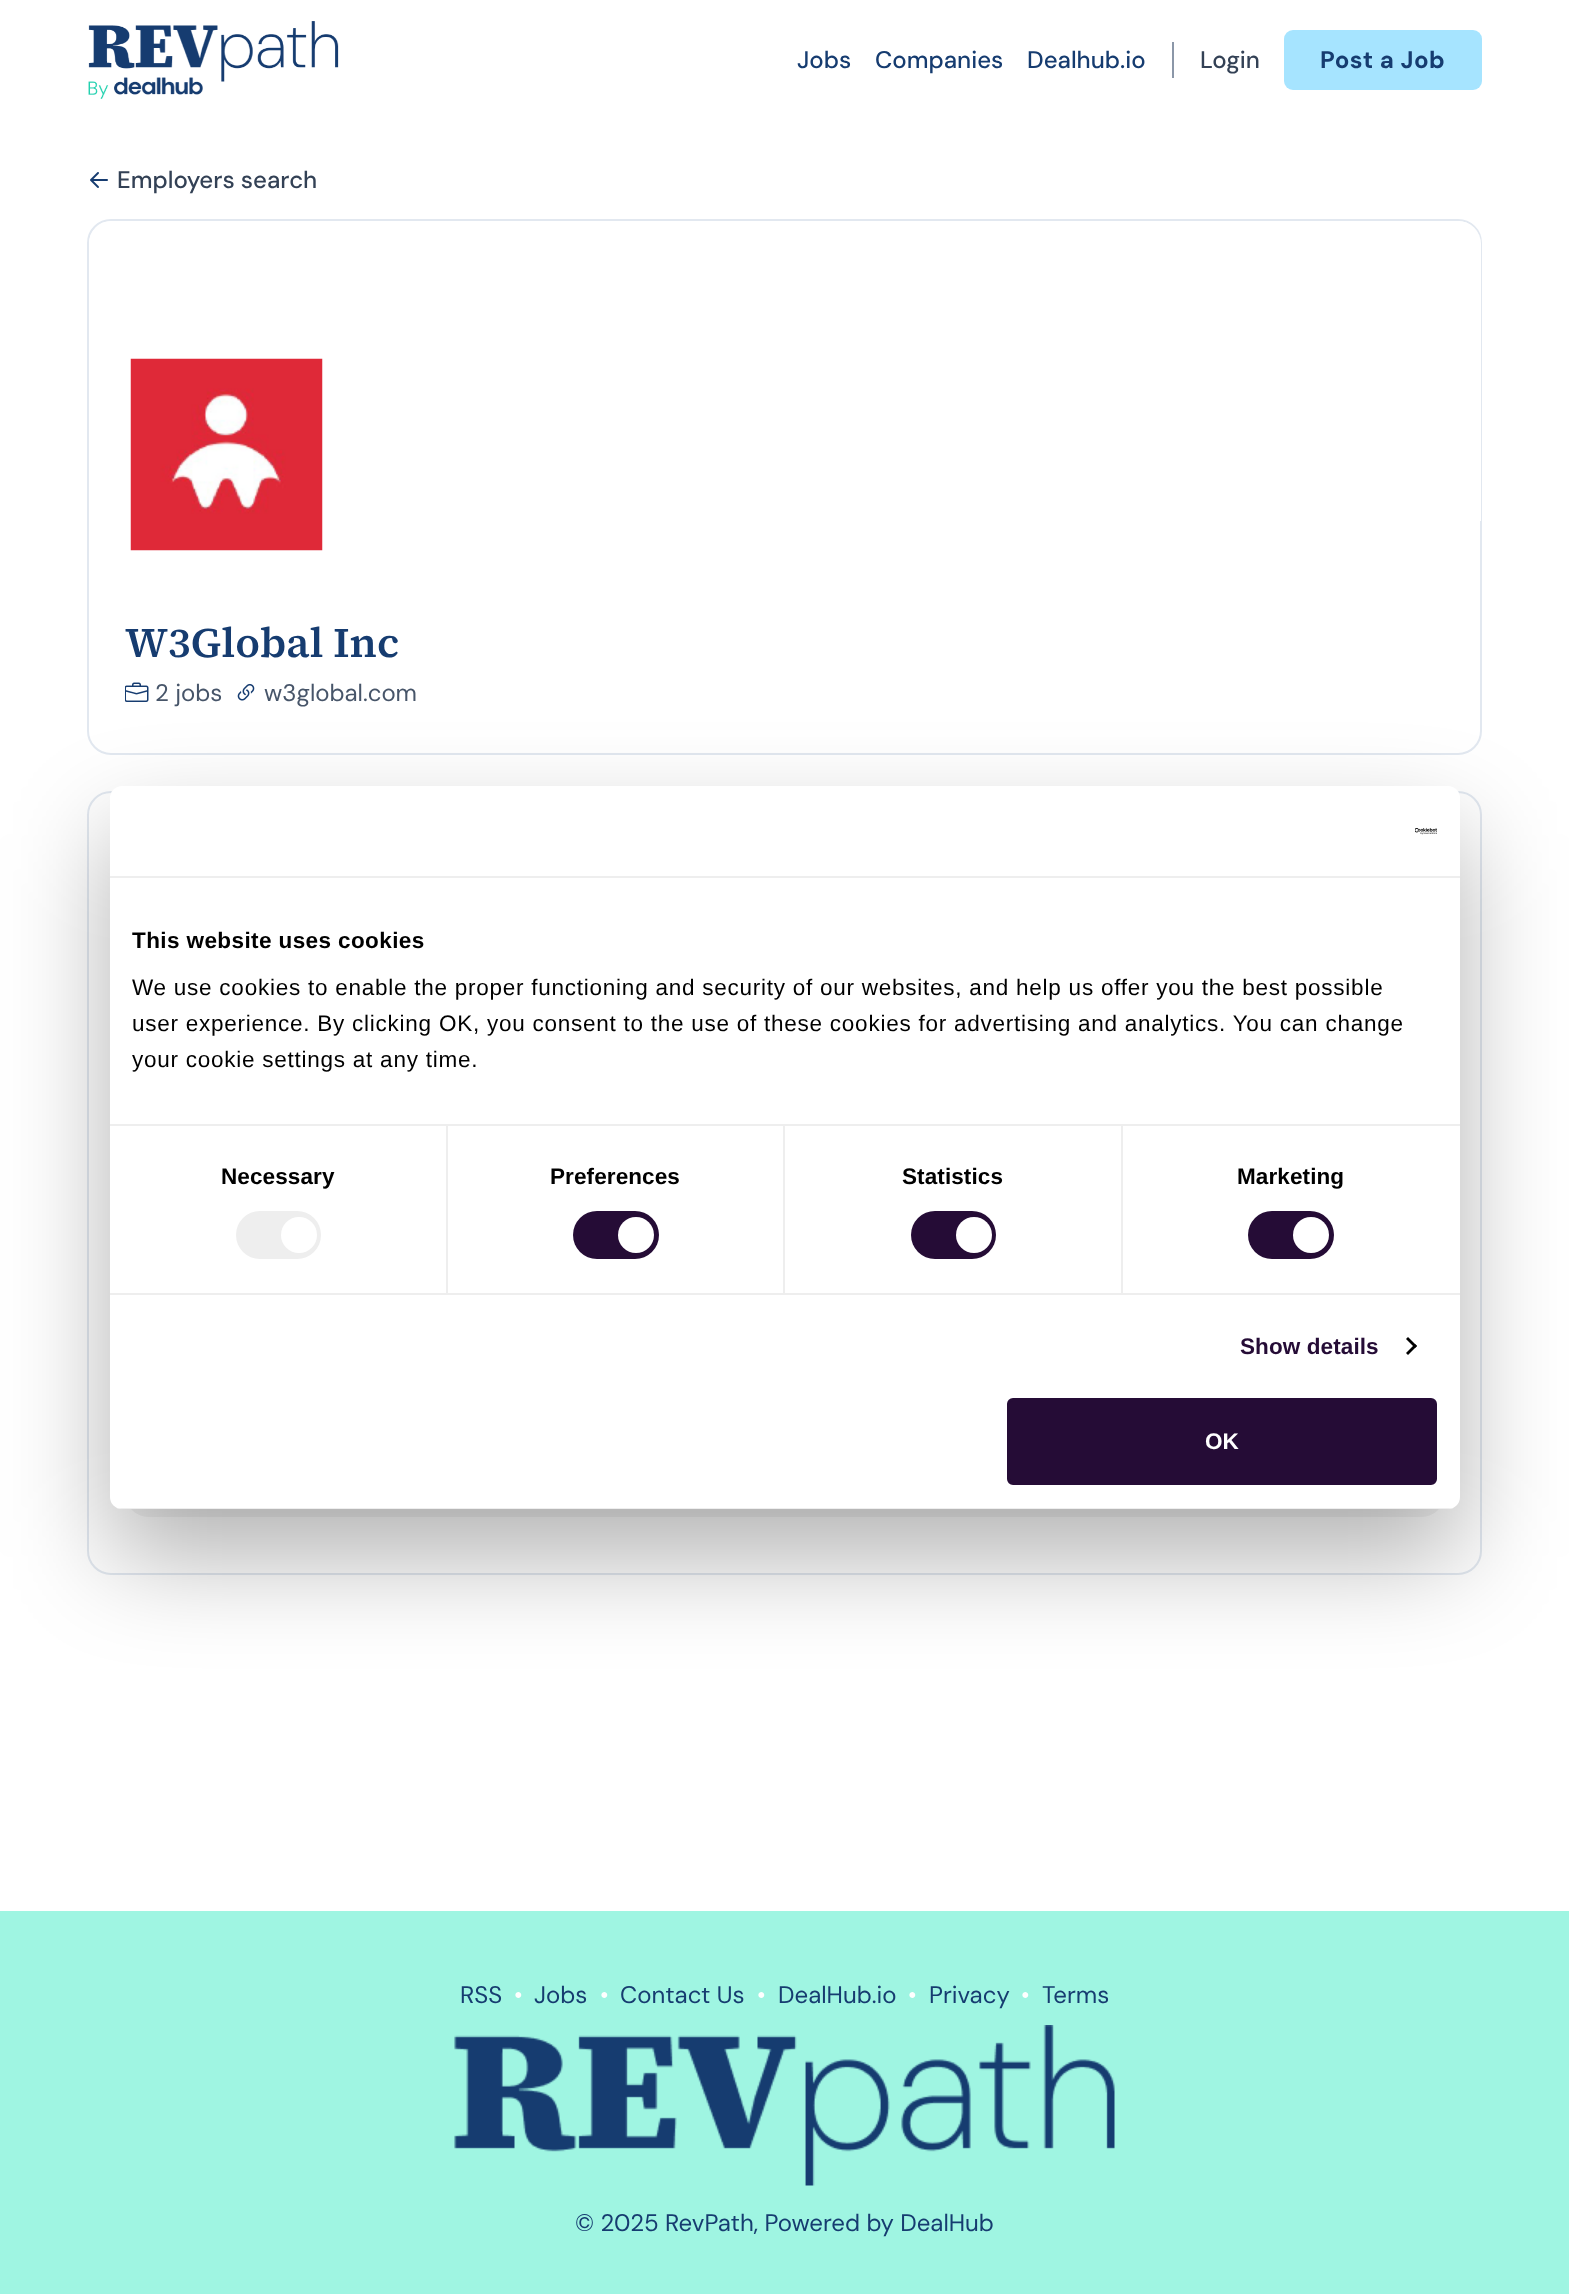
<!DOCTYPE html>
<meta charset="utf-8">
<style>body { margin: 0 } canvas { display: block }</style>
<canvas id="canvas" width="1569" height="2294"></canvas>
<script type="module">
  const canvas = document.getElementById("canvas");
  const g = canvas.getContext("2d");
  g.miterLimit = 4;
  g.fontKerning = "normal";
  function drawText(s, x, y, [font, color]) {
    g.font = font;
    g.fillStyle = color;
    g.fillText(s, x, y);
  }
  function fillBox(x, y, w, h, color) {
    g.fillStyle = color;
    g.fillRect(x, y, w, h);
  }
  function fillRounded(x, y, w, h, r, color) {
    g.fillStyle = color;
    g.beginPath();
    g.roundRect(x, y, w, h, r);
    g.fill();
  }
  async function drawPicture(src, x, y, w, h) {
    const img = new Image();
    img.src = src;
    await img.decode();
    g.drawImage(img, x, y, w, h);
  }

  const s1 = ["500 24px DM Sans", "#163C70"];
  const s2 = ["500 24px DM Sans", "#334155"];
  const s3 = ["bold 24px DM Sans", "#163C70"];
  const s4 = ["600 42px 'Source Serif 4'", "#163C70"];
  const s5 = ["24px DM Sans", "#475569"];
  const s6 = ["bold 22.5px Liberation Sans", "#000000"];
  const s7 = ["22.5px Liberation Sans", "#000000"];
  const s8 = ["bold 22.5px Liberation Sans", "#250C36"];
  const s9 = ["bold 22.5px Liberation Sans", "#FFFFFF"];
  const s10 = ["24px DM Sans", "#163C70"];
  const s11 = ["24px DM Sans", "#FFFFFF"];

  fillBox(0, 0, 1569, 2294, "#FFFFFF");
  await drawPicture("pic1.png", 88, 21, 251, 78);
  drawText("Jobs", 797, 68, s1);
  drawText("Companies", 875, 68, s1);
  drawText("Dealhub.io", 1027, 68, s1);
  fillBox(1172, 42, 2, 36, "#8B97A8");
  drawText("Login", 1200, 68, s2);
  fillRounded(1284, 30, 198, 60, 9, "#A6E4FF");
  g.letterSpacing = "0.5px";
  drawText("Post a Job", 1320, 68, s3);
  await drawPicture("pic2.png", 90, 172, 18, 16);
  g.letterSpacing = "0px";
  drawText("Employers search", 117, 188, s2);
  g.beginPath();
  g.roundRect(88, 220, 1393, 534, 23);
  g.strokeStyle = "#E2E8F0";
  g.lineWidth = 2;
  g.stroke();
  g.fillStyle = "#FFFFFF";
  g.beginPath();
  g.roundRect(89, 221, 1392, 300, [23, 23, 0, 0]);
  g.fill();
  await drawPicture("pic3.png", 130, 358, 193, 193);
  drawText("W3Global Inc", 125, 657, s4);
  await drawPicture("pic4.png", 125, 682, 24, 20);
  drawText("2 jobs", 155, 701, s5);
  await drawPicture("pic5.png", 237, 683, 18, 18);
  drawText("w3global.com", 264, 701, s5);
  g.beginPath();
  g.roundRect(88, 792, 1393, 782, 23);
  g.stroke();
  g.fillStyle = "#F4F4F4";
  g.beginPath();
  g.roundRect(126, 1324, 1318, 192, 23);
  g.fill();
  g.strokeStyle = "#F4F4F4";
  g.stroke();
  g.fillStyle = "rgba(0, 0, 0, 0.3)";
  g.filter = "blur(51px)";
  g.beginPath();
  g.roundRect(110, 834, 1350, 723, 12);
  g.fill();
  g.filter = "none";
  fillRounded(110, 786, 1350, 723, 12, "#FFFFFF");
  fillBox(110, 876, 1350, 2, "#EEEEEE");
  await drawPicture("pic6.png", 1415, 827, 22, 8);
  fillBox(446, 1125, 2, 168, "#EEEEEE");
  fillBox(783, 1125, 2, 168, "#EEEEEE");
  fillBox(1121, 1125, 2, 168, "#EEEEEE");
  fillBox(110, 1124, 1350, 2, "#EEEEEE");
  g.letterSpacing = "0.4px";
  drawText("This website uses cookies", 132, 948, s6);
  g.letterSpacing = "0.75px";
  drawText("We use cookies to enable the proper functioning and security of our websites, and help us offer you the best possible", 132, 995, s7);
  drawText("user experience. By clicking OK, you consent to the use of these cookies for advertising and analytics. You can change", 132, 1031, s7);
  drawText("your cookie settings at any time.", 132, 1067, s7);
  fillBox(110, 1293, 1350, 2, "#EEEEEE");
  g.letterSpacing = "0.1px";
  drawText("Necessary", 221, 1184, s6);
  fillRounded(236, 1211, 85, 48, 24, "#EEEEEE");
  g.fillStyle = "#FFFFFF";
  g.beginPath();
  g.arc(299, 1235, 18, 0, Math.PI * 2);
  g.fill();
  drawText("Preferences", 550, 1184, s6);
  fillRounded(573, 1211, 86, 48, 24, "#250C36");
  g.fillStyle = "#FFFFFF";
  g.beginPath();
  g.arc(636, 1235, 18, 0, Math.PI * 2);
  g.fill();
  drawText("Statistics", 902, 1184, s6);
  fillRounded(911, 1211, 85, 48, 24, "#250C36");
  g.fillStyle = "#FFFFFF";
  g.beginPath();
  g.arc(974, 1235, 18, 0, Math.PI * 2);
  g.fill();
  drawText("Marketing", 1237, 1184, s6);
  fillRounded(1248, 1211, 86, 48, 24, "#250C36");
  g.fillStyle = "#FFFFFF";
  g.beginPath();
  g.arc(1311, 1235, 18, 0, Math.PI * 2);
  g.fill();
  drawText("Show details", 1240, 1354, s8);
  g.fillStyle = "#000000";
  g.beginPath();
  g.moveTo(1408, 1337);
  g.lineTo(1417, 1346);
  g.lineTo(1415, 1348);
  g.lineTo(1406, 1339);
  g.closePath();
  g.fill();
  g.beginPath();
  g.moveTo(1415, 1344);
  g.lineTo(1417, 1346);
  g.lineTo(1408, 1355);
  g.lineTo(1406, 1353);
  g.closePath();
  g.fill();
  g.save();
  g.beginPath();
  g.roundRect(110, 786, 1350, 723, 12);
  g.clip();
  fillBox(110, 1508, 1350, 1, "#EEEEEE");
  g.restore();
  g.fillStyle = "#250C36";
  g.beginPath();
  g.roundRect(1008.5, 1399.5, 427, 84, 4.5);
  g.fill();
  g.strokeStyle = "#250C36";
  g.lineWidth = 3;
  g.stroke();
  g.letterSpacing = "0px";
  drawText("OK", 1205, 1449, s9);
  fillBox(0, 1911, 1569, 383, "#9FF5E2");
  drawText("RSS", 460, 2003, s10);
  drawText("•", 514, 2003, s11);
  drawText("Jobs", 534, 2003, s10);
  drawText("•", 600, 2003, s11);
  drawText("Contact Us", 620, 2003, s10);
  drawText("•", 757, 2003, s11);
  drawText("DealHub.io", 778, 2003, s10);
  drawText("•", 908, 2003, s11);
  drawText("Privacy", 929, 2003, s10);
  drawText("•", 1021, 2003, s11);
  drawText("Terms", 1042, 2003, s10);
  await drawPicture("pic7.png", 454, 2025, 661, 161);
  drawText("© 2025 RevPath, Powered by DealHub", 575, 2231, s10);
</script>
